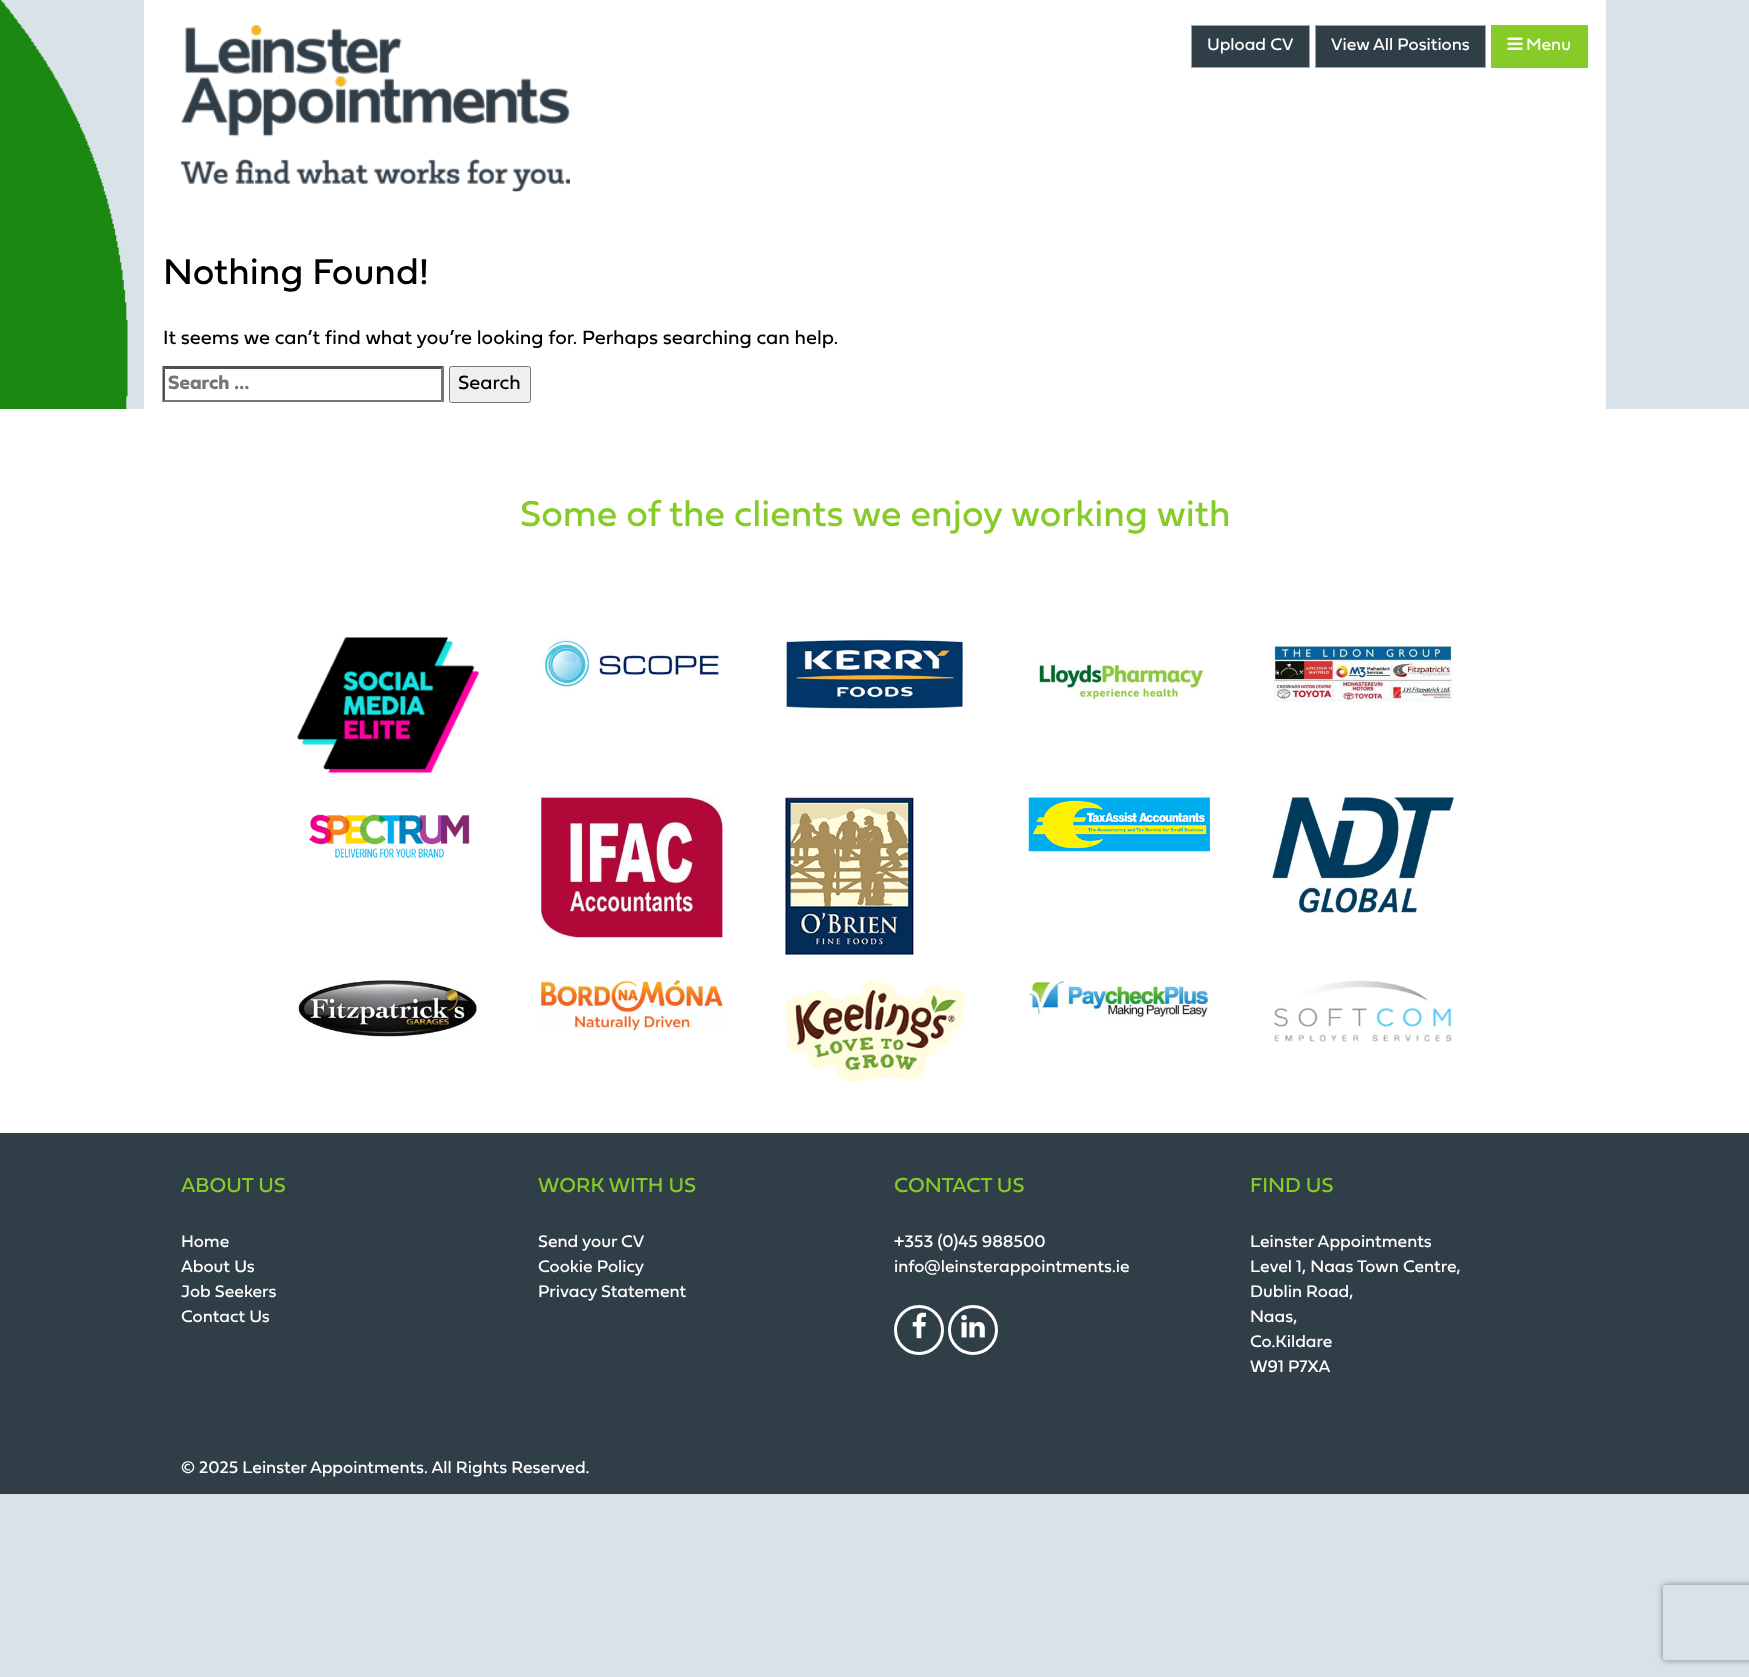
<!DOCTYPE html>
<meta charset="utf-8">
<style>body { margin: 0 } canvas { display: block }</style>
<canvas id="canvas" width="1749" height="1677"></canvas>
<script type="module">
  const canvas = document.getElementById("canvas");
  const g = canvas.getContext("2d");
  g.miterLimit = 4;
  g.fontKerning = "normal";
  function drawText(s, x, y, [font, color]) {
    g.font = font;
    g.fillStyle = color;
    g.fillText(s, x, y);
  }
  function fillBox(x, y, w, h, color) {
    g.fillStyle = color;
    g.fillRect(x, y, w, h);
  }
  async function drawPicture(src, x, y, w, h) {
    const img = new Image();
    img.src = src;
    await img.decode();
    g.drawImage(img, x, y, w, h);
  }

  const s1 = ["17.5px 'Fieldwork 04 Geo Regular'", "#FFFFFF"];
  const s2 = ["37.5px 'Fieldwork 04 Geo Regular'", "#000000"];
  const s3 = ["20px 'Fieldwork 04 Geo Regular'", "#000000"];
  const s4 = ["bold 20px 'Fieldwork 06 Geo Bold'", "#757575"];
  const s5 = ["37.5px 'Fieldwork 04 Geo Regular'", "#87CB28"];
  const s6 = ["21.25px 'Fieldwork 04 Geo Regular'", "#87CB28"];

  fillBox(0, 0, 1749, 1677, "#D9E2E8");
  await drawPicture("pic1.png", 0, 0, 128, 409);
  fillBox(144, 0, 1462, 409, "#FFFFFF");
  await drawPicture("pic2.png", 181, 25, 389, 167);
  g.fillStyle = "#303E48";
  g.beginPath();
  g.rect(1191.5, 25.5, 118, 42);
  g.fill();
  g.strokeStyle = "#87CB28";
  g.stroke();
  drawText("Upload CV", 1207, 50, s1);
  g.fillStyle = "#303E48";
  g.beginPath();
  g.rect(1315.5, 25.5, 170, 42);
  g.fill();
  g.stroke();
  drawText("View", 1331, 50, s1);
  drawText("All Positions", 1373, 50, s1);
  fillBox(1491, 25, 97, 43, "#87CB28");
  await drawPicture("pic3.png", 1507, 37, 16, 13);
  drawText("Menu", 1526, 50, s1);
  drawText("Nothing Found!", 163, 284, s2);
  drawText("It seems we can’t find what you’re looking for. Perhaps searching can help.", 163, 344, s3);
  g.fillStyle = "#4F4F4F";
  g.beginPath();
  g.moveTo(162, 366);
  g.lineTo(444, 366);
  g.lineTo(441, 369);
  g.lineTo(165, 369);
  g.closePath();
  g.fill();
  g.fillStyle = "#767676";
  g.beginPath();
  g.moveTo(444, 366);
  g.lineTo(444, 402.5);
  g.lineTo(441, 400);
  g.lineTo(441, 369);
  g.closePath();
  g.fill();
  g.beginPath();
  g.moveTo(444, 402);
  g.lineTo(162, 402);
  g.lineTo(165, 400);
  g.lineTo(441, 400);
  g.closePath();
  g.fill();
  g.fillStyle = "#4F4F4F";
  g.beginPath();
  g.moveTo(162.5, 402.5);
  g.lineTo(162.5, 366);
  g.lineTo(165, 369);
  g.lineTo(165, 400);
  g.closePath();
  g.fill();
  drawText("Search …", 168, 389, s4);
  g.fillStyle = "#EFEFEF";
  g.beginPath();
  g.roundRect(449.5, 366.5, 81, 36, 2);
  g.fill();
  g.strokeStyle = "#767676";
  g.stroke();
  drawText("Search", 458, 389, s3);
  fillBox(0, 409, 1749, 724, "#FFFFFF");
  drawText("Some of the clients we enjoy working with", 520, 526, s5);
  await drawPicture("pic4.png", 297, 637, 182, 136);
  await drawPicture("pic5.png", 541, 637, 179, 53);
  await drawPicture("pic6.png", 785, 639, 179, 70);
  await drawPicture("pic7.png", 1038, 662, 170, 38);
  await drawPicture("pic8.png", 1272, 643, 182, 60);
  await drawPicture("pic9.png", 309, 814, 161, 44);
  await drawPicture("pic10.png", 541, 797, 182, 141);
  await drawPicture("pic11.png", 785, 797, 129, 158);
  await drawPicture("pic12.png", 1028, 797, 182, 55);
  await drawPicture("pic13.png", 1272, 797, 182, 116);
  await drawPicture("pic14.png", 297, 980, 180, 57);
  await drawPicture("pic15.png", 541, 980, 182, 50);
  await drawPicture("pic16.png", 785, 980, 182, 103);
  await drawPicture("pic17.png", 1028, 980, 182, 38);
  await drawPicture("pic18.png", 1274, 980, 178, 62);
  fillBox(0, 1133, 1749, 361, "#303E48");
  drawText("ABOUT US", 181, 1192, s6);
  drawText("Home", 181, 1247, s1);
  drawText("About Us", 181, 1272, s1);
  drawText("Job Seekers", 181, 1297, s1);
  drawText("Contact Us", 181, 1322, s1);
  drawText("WORK WITH US", 538, 1192, s6);
  drawText("Send your CV", 538, 1247, s1);
  drawText("Cookie Policy", 538, 1272, s1);
  drawText("Privacy Statement", 538, 1297, s1);
  drawText("CONTACT US", 894, 1192, s6);
  drawText("+353 (0)45 988500", 894, 1247, s1);
  drawText("info@leinsterappointments.ie", 894, 1272, s1);
  g.beginPath();
  g.arc(919, 1330, 23.5, 0, Math.PI * 2);
  g.strokeStyle = "#FFFFFF";
  g.lineWidth = 3;
  g.stroke();
  await drawPicture("pic19.png", 912, 1312, 14, 27);
  g.beginPath();
  g.arc(973, 1330, 23.5, 0, Math.PI * 2);
  g.stroke();
  await drawPicture("pic20.png", 961, 1315, 24, 23);
  drawText("FIND US", 1250, 1192, s6);
  drawText("Leinster Appointments", 1250, 1247, s1);
  drawText("Level 1, Naas Town Centre,", 1250, 1272, s1);
  drawText("Dublin Road,", 1250, 1297, s1);
  drawText("Naas,", 1250, 1322, s1);
  drawText("Co.Kildare", 1250, 1347, s1);
  drawText("W91 P7XA", 1250, 1372, s1);
  drawText("© 2025 Leinster Appointments. All Rights Reserved.", 181, 1473, s1);
  g.save();
  g.beginPath();
  g.moveTo(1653, 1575);
  g.lineTo(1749, 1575);
  g.lineTo(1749, 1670);
  g.lineTo(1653, 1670);
  g.closePath();
  g.moveTo(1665.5, 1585);
  g.lineTo(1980.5, 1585);
  g.bezierCurveTo(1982, 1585, 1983, 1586, 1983, 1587.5);
  g.lineTo(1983, 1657.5);
  g.bezierCurveTo(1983, 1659, 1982, 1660, 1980.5, 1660);
  g.lineTo(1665.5, 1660);
  g.bezierCurveTo(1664, 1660, 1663, 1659, 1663, 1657.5);
  g.lineTo(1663, 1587.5);
  g.bezierCurveTo(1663, 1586, 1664, 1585, 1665.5, 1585);
  g.closePath();
  g.clip("evenodd");
  g.fillStyle = "#808080";
  g.filter = "blur(3px)";
  g.beginPath();
  g.roundRect(1663, 1585, 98, 75, 2.5);
  g.fill();
  g.filter = "none";
  g.restore();
</script>
